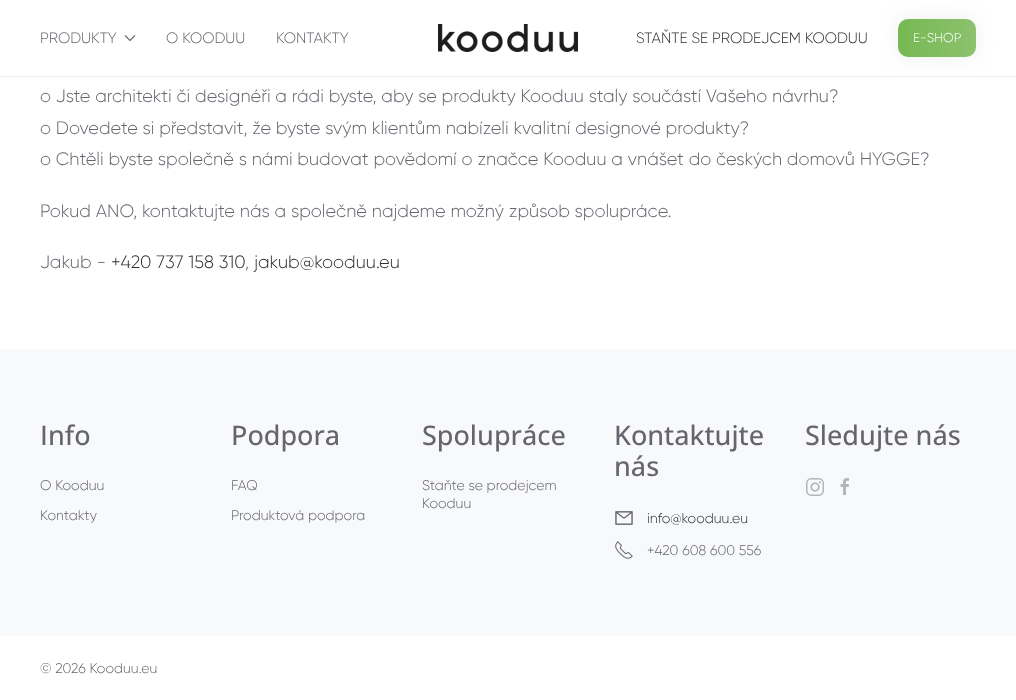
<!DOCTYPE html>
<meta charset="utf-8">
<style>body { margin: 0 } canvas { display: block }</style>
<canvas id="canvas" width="1016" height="700"></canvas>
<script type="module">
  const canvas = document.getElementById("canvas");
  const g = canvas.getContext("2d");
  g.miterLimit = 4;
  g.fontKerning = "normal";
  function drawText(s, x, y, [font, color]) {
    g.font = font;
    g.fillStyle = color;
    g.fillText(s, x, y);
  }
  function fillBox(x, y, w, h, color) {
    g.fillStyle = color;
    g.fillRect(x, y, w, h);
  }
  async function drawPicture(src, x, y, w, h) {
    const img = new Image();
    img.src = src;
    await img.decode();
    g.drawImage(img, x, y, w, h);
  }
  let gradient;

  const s1 = ["300 15px Gilroy", "#66656E"];
  const s2 = ["300 15px Gilroy", "#2D2E33"];
  const s3 = ["300 13px Gilroy", "#FFFFFF"];
  const s4 = ["300 18px Gilroy", "#66656E"];
  const s5 = ["300 18px Gilroy", "#2D2E33"];
  const s6 = ["500 27px Open Sans", "#66656E"];
  const s7 = ["300 14px Gilroy", "#66656E"];
  const s8 = ["300 14px Gilroy", "#2D2E33"];

  fillBox(0, 0, 1016, 700, "#FFFFFF");
  fillBox(0, 76, 1016, 1, "#ECECEC");
  drawText("PRODUKTY", 40, 43, s1);
  g.beginPath();
  g.moveTo(125, 35.5);
  g.lineTo(130, 40.5);
  g.lineTo(135, 35.5);
  g.strokeStyle = "#66656E";
  g.lineWidth = 1.1;
  g.stroke();
  drawText("O KOODUU", 166, 43, s1);
  drawText("KONTAKTY", 276, 43, s1);
  await drawPicture("pic1.png", 438, 24, 140, 28);
  drawText("STAŇTE SE PRODEJCEM KOODUU", 636, 43, s2);
  g.fillStyle = "#EEEEEE";
  g.filter = "blur(10px)";
  g.beginPath();
  g.roundRect(898, 19, 78, 38, 10);
  g.fill();
  g.filter = "none";
  gradient = g.createLinearGradient(898, 38, 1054, 38);
  gradient.addColorStop(0, "#76B852");
  gradient.addColorStop(0.51, "#8DC26F");
  gradient.addColorStop(1, "#76B852");
  g.fillStyle = gradient;
  g.beginPath();
  g.roundRect(898, 19, 78, 38, 10);
  g.fill();
  drawText("E-SHOP", 913, 42, s3);
  drawText("o Jste architekti či designéři a rádi byste, aby se produkty Kooduu staly součástí Vašeho návrhu?", 40, 102, s4);
  drawText("o Dovedete si představit, že byste svým klientům nabízeli kvalitní designové produkty?", 40, 134, s4);
  drawText("o Chtěli byste společně s námi budovat povědomí o značce Kooduu a vnášet do českých domovů HYGGE?", 40, 165, s4);
  drawText("Pokud ANO, kontaktujte nás a společně najdeme možný způsob spolupráce.", 40, 217, s4);
  drawText("Jakub -", 40, 268, s4);
  drawText("+420 737 158 310", 111, 268, s5);
  drawText(",", 245, 268, s4);
  drawText("jakub@kooduu.eu", 254, 268, s5);
  fillBox(0, 349, 1016, 287, "#F8F9FA");
  drawText("Info", 40, 445, s6);
  drawText("O Kooduu", 40, 490, s7);
  drawText("Kontakty", 40, 520, s7);
  drawText("Podpora", 231, 445, s6);
  drawText("FAQ", 231, 490, s7);
  drawText("Produktová podpora", 231, 520, s7);
  drawText("Spolupráce", 422, 445, s6);
  drawText("Staňte se prodejcem", 422, 490, s7);
  drawText("Kooduu", 422, 508, s7);
  drawText("Kontaktujte", 614, 445, s6);
  drawText("nás", 614, 476, s6);
  await drawPicture("pic2.png", 615, 511, 18, 14);
  drawText("info@kooduu.eu", 647, 523, s8);
  await drawPicture("pic3.png", 615, 541, 18, 18);
  drawText("+420 608 600 556", 647, 555, s7);
  drawText("Sledujte nás", 805, 445, s6);
  await drawPicture("pic4.png", 806, 478, 18, 18);
  await drawPicture("pic5.png", 840, 478, 9, 17);
  drawText("© 2026 Kooduu.eu", 40, 673, s7);
</script>
